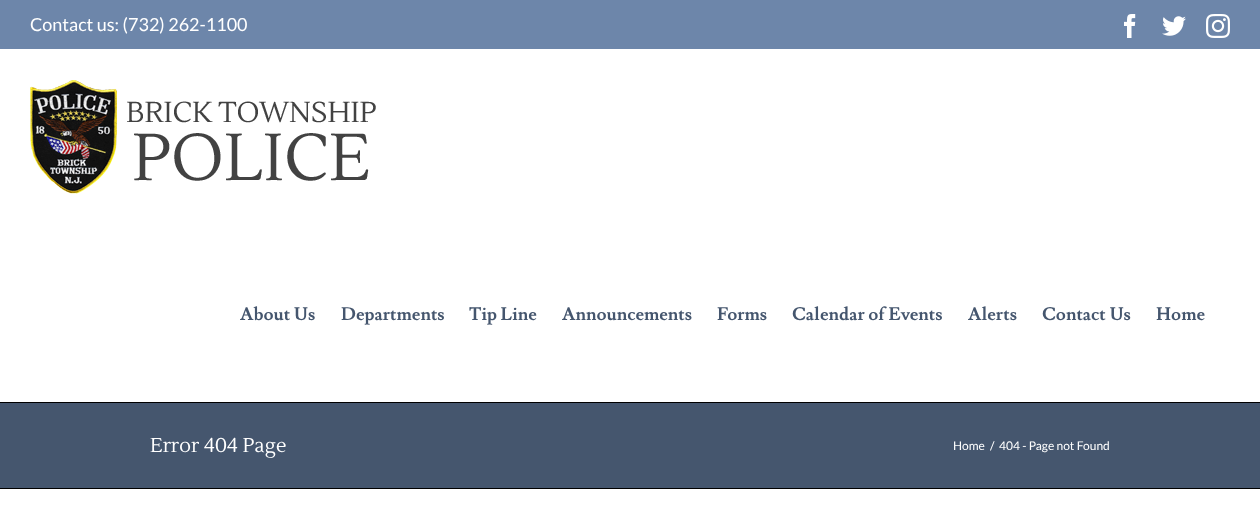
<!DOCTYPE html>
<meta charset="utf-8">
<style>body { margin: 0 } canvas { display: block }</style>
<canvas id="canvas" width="1260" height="527"></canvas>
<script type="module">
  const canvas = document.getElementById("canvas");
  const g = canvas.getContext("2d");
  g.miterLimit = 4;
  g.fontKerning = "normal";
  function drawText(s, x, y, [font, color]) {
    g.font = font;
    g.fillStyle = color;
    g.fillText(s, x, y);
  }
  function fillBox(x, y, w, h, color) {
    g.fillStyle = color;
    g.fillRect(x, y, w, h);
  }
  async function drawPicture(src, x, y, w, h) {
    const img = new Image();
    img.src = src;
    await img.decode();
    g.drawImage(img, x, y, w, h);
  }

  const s1 = ["18px Lato", "#FFFFFF"];
  const s2 = ["bold 18px Lusitana", "#45566E"];
  const s3 = ["20px Lustria", "#FFFFFF"];
  const s4 = ["12px Lato", "#FFFFFF"];

  fillBox(0, 0, 1260, 527, "#FFFFFF");
  fillBox(0, 0, 1260, 49, "#6D86AA");
  drawText("Contact us: (732) 262-1100", 30, 31, s1);
  await drawPicture("pic1.png", 1124, 14, 12, 24);
  await drawPicture("pic2.png", 1162, 16, 24, 20);
  await drawPicture("pic3.png", 1206, 14, 24, 24);
  await drawPicture("pic4.png", 30, 80, 346, 114);
  drawText("About Us", 240, 320, s2);
  drawText("Departments", 341, 320, s2);
  drawText("Tip Line", 469, 320, s2);
  drawText("Announcements", 562, 320, s2);
  drawText("Forms", 717, 320, s2);
  drawText("Calendar of Events", 792, 320, s2);
  drawText("Alerts", 968, 320, s2);
  drawText("Contact Us", 1042, 320, s2);
  drawText("Home", 1156, 320, s2);
  fillBox(0, 403, 1260, 85, "#45566E");
  fillBox(0, 402, 1260, 1, "#000000");
  fillBox(0, 488, 1260, 1, "#000000");
  drawText("Error 404 Page", 150, 452, s3);
  drawText("Home", 953, 450, s4);
  drawText("/", 990, 450, s4);
  drawText("404 - Page not Found", 999, 450, s4);
</script>
